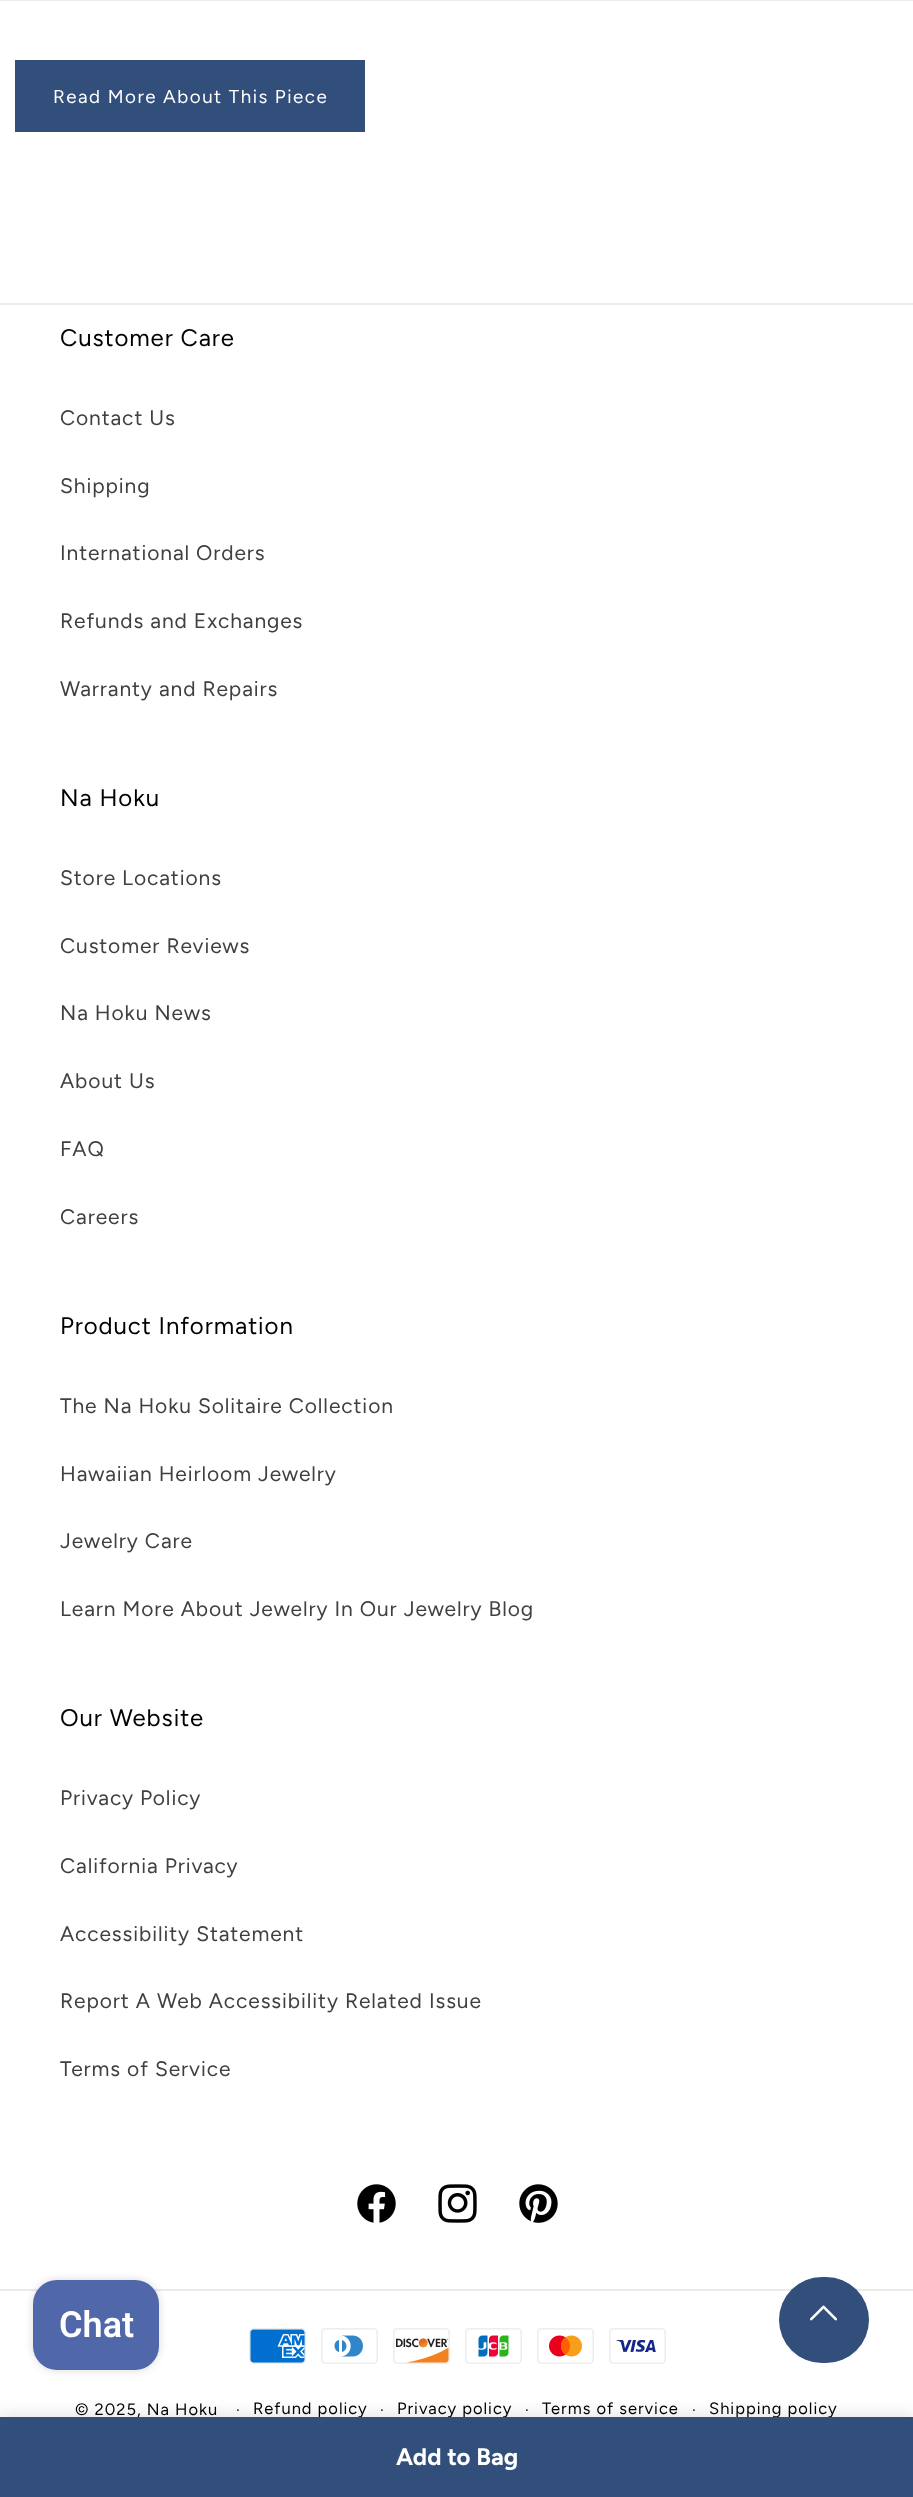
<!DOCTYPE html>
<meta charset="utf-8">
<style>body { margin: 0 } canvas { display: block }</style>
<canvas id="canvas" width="913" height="2497"></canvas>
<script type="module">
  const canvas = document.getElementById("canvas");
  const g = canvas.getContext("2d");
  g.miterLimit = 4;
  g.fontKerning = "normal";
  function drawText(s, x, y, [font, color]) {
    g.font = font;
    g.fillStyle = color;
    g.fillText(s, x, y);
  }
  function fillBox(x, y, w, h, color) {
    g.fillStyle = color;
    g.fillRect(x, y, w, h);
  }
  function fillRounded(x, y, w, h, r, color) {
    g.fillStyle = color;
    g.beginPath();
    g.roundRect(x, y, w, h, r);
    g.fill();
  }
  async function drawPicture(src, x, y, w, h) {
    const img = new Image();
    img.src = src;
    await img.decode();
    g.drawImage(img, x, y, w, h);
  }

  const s1 = ["18.75px Figtree", "#FFFFFF"];
  const s2 = ["24px Figtree", "#000000"];
  const s3 = ["21px Figtree", "#404040"];
  const s4 = ["16.5px Figtree", "#000000"];
  const s5 = ["15px Figtree", "#000000"];
  const s6 = ["600 36px Roboto", "#FFFFFF"];
  const s7 = ["bold 24px Figtree", "#FFFFFF"];

  fillBox(0, 0, 913, 2497, "#FFFFFF");
  fillBox(0, 0, 913, 1, "#EBEBEB");
  fillBox(15, 60, 350, 72, "#324E7B");
  g.letterSpacing = "1.5px";
  drawText("Read More About This Piece", 53, 103, s1);
  fillBox(0, 303, 913, 2, "#EBEBEB");
  g.letterSpacing = "0.9px";
  drawText("Customer Care", 60, 346, s2);
  drawText("Contact Us", 60, 425, s3);
  drawText("Shipping", 60, 493, s3);
  drawText("International Orders", 60, 560, s3);
  drawText("Refunds and Exchanges", 60, 628, s3);
  drawText("Warranty and Repairs", 60, 696, s3);
  drawText("Na Hoku", 60, 806, s2);
  drawText("Store Locations", 60, 885, s3);
  drawText("Customer Reviews", 60, 953, s3);
  drawText("Na Hoku News", 60, 1020, s3);
  drawText("About Us", 60, 1088, s3);
  drawText("FAQ", 60, 1156, s3);
  drawText("Careers", 60, 1224, s3);
  drawText("Product Information", 60, 1334, s2);
  drawText("The Na Hoku Solitaire Collection", 60, 1413, s3);
  drawText("Hawaiian Heirloom Jewelry", 60, 1481, s3);
  drawText("Jewelry Care", 60, 1548, s3);
  drawText("Learn More About Jewelry In Our Jewelry Blog", 60, 1616, s3);
  drawText("Our Website", 60, 1726, s2);
  drawText("Privacy Policy", 60, 1805, s3);
  drawText("California Privacy", 60, 1873, s3);
  drawText("Accessibility Statement", 60, 1941, s3);
  drawText("Report A Web Accessibility Related Issue", 60, 2008, s3);
  drawText("Terms of Service", 60, 2076, s3);
  await drawPicture("pic1.png", 357, 2184, 39, 39);
  await drawPicture("pic2.png", 438, 2184, 39, 39);
  await drawPicture("pic3.png", 519, 2184, 39, 39);
  fillBox(0, 2289, 913, 2, "#EBEBEB");
  await drawPicture("pic4.png", 249, 2328, 57, 36);
  await drawPicture("pic5.png", 321, 2328, 57, 36);
  await drawPicture("pic6.png", 393, 2328, 57, 36);
  await drawPicture("pic7.png", 465, 2328, 57, 36);
  await drawPicture("pic8.png", 537, 2328, 57, 36);
  await drawPicture("pic9.png", 609, 2328, 57, 36);
  g.letterSpacing = "1px";
  drawText("© 2025, Na Hoku", 75, 2415, s4);
  drawText("·", 236, 2415, s5);
  drawText("Refund policy", 253, 2414, s4);
  drawText("·", 380, 2415, s5);
  drawText("Privacy policy", 397, 2414, s4);
  drawText("·", 525, 2415, s5);
  drawText("Terms of service", 542, 2414, s4);
  drawText("·", 692, 2415, s5);
  drawText("Shipping policy", 709, 2414, s4);
  g.fillStyle = "rgba(0, 0, 0, 0.15)";
  g.filter = "blur(4px)";
  g.beginPath();
  g.roundRect(33, 2280, 126, 90, 24);
  g.fill();
  g.filter = "none";
  fillRounded(33, 2280, 126, 90, 24, "#5068A9");
  g.letterSpacing = "0px";
  drawText("Chat", 59, 2337, s6);
  fillRounded(779, 2277, 90, 86, 43, "#324E7B");
  await drawPicture("pic10.png", 810, 2305, 27, 16);
  g.fillStyle = "rgba(0, 0, 0, 0.1)";
  g.filter = "blur(7.5px)";
  g.beginPath();
  g.rect(0, 2414, 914, 81);
  g.fill();
  g.filter = "none";
  fillBox(0, 2417, 913, 80, "#324E7B");
  drawText("Add to Bag", 396, 2465, s7);
</script>
